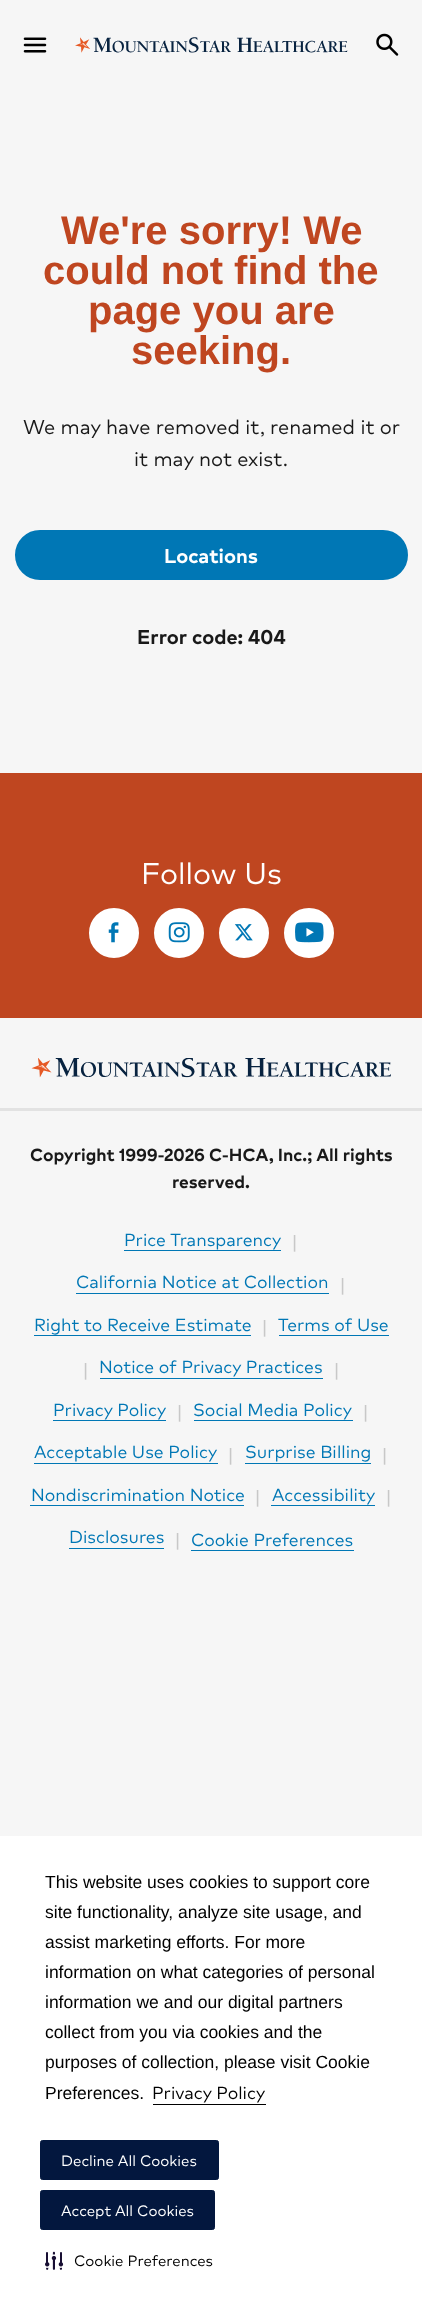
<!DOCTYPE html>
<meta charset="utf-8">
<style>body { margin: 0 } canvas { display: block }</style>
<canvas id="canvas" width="422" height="2319"></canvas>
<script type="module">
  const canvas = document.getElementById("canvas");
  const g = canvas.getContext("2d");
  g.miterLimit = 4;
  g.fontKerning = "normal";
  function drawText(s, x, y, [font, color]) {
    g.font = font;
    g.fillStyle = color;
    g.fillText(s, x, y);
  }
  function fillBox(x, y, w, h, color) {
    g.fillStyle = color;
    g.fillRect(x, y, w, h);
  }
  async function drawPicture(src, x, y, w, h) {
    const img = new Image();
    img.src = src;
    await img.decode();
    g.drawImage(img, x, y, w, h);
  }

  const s1 = ["bold 40px Liberation Sans", "#BF4620"];
  const s2 = ["20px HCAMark", "#191919"];
  const s3 = ["bold 20px HCAMark", "#FFFFFF"];
  const s4 = ["bold 20px HCAMark", "#191919"];
  const s5 = ["30px HCAMark", "#FFFFFF"];
  const s6 = ["bold 17.5px HCAMark", "#191919"];
  const s7 = ["17.5px HCAMark", "#0077B5"];
  const s8 = ["20px HCAMark", "#C8C8C8"];
  const s9 = ["17.5px Liberation Sans", "#000000"];
  const s10 = ["17.5px HCAMark", "#000000"];
  const s11 = ["15px HCAMark", "#FFFFFF"];
  const s12 = ["15px HCAMark", "#000000"];

  fillBox(0, 0, 422, 2319, "#F6F6F6");
  await drawPicture("pic1.png", 23, 37, 24, 16);
  await drawPicture("pic2.png", 75, 37, 273, 16);
  await drawPicture("pic3.png", 376, 33, 23, 23);
  drawText("We're sorry! We", 61, 244, s1);
  drawText("could not find the", 43, 284, s1);
  drawText("page you are", 88, 324, s1);
  drawText("seeking.", 131, 364, s1);
  drawText("We may have removed it, renamed it or", 23, 434, s2);
  drawText("it may not exist.", 134, 466, s2);
  g.fillStyle = "#0077B5";
  g.beginPath();
  g.roundRect(16.5, 531.5, 390, 47, 23.5);
  g.fill();
  g.strokeStyle = "#0077B5";
  g.lineWidth = 3;
  g.stroke();
  drawText("Locations", 164, 563, s3);
  drawText("Error code: 404", 137, 644, s4);
  fillBox(0, 773, 422, 245, "#BF4620");
  drawText("Follow Us", 141, 884, s5);
  g.beginPath();
  g.arc(114, 933, 23.5, 0, Math.PI * 2);
  g.fill();
  g.strokeStyle = "#FFFFFF";
  g.stroke();
  await drawPicture("pic4.png", 108, 922, 11, 21);
  g.beginPath();
  g.arc(179, 933, 23.5, 0, Math.PI * 2);
  g.fill();
  g.stroke();
  await drawPicture("pic5.png", 168, 922, 22, 21);
  g.beginPath();
  g.arc(244, 933, 23.5, 0, Math.PI * 2);
  g.fill();
  g.stroke();
  await drawPicture("pic6.png", 234, 924, 19, 17);
  g.beginPath();
  g.arc(309, 933, 23.5, 0, Math.PI * 2);
  g.fill();
  g.stroke();
  await drawPicture("pic7.png", 295, 922, 29, 21);
  await drawPicture("pic8.png", 31, 1058, 360, 20);
  fillBox(0, 1108, 422, 3, "#E2E2E2");
  drawText("Copyright 1999-2026 C-HCA, Inc.; All rights", 30, 1161, s6);
  drawText("reserved.", 172, 1188, s6);
  drawText("Price Transparency", 124, 1246, s7);
  fillBox(124, 1250, 157, 1, "#0077B5");
  drawText("|", 291, 1249, s8);
  drawText("California Notice at Collection", 76, 1288, s7);
  fillBox(76, 1293, 253, 1, "#0077B5");
  drawText("|", 339, 1292, s8);
  drawText("Right to Receive Estimate", 34, 1331, s7);
  fillBox(34, 1335, 217, 1, "#0077B5");
  drawText("|", 261, 1334, s8);
  drawText("Terms of Use", 278, 1331, s7);
  fillBox(279, 1335, 110, 1, "#0077B5");
  drawText("|", 82, 1377, s8);
  drawText("Notice of Privacy Practices", 99, 1373, s7);
  fillBox(100, 1378, 223, 1, "#0077B5");
  drawText("|", 333, 1377, s8);
  drawText("Privacy Policy", 53, 1416, s7);
  fillBox(53, 1420, 113, 1, "#0077B5");
  drawText("|", 176, 1419, s8);
  drawText("Social Media Policy", 193, 1416, s7);
  fillBox(194, 1420, 159, 1, "#0077B5");
  drawText("|", 362, 1419, s8);
  drawText("Acceptable Use Policy", 34, 1458, s7);
  fillBox(34, 1463, 184, 1, "#0077B5");
  drawText("|", 227, 1462, s8);
  drawText("Surprise Billing", 245, 1458, s7);
  fillBox(245, 1463, 126, 1, "#0077B5");
  drawText("|", 381, 1462, s8);
  drawText("Nondiscrimination Notice", 31, 1501, s7);
  fillBox(30, 1505, 214, 1, "#0077B5");
  drawText("|", 254, 1504, s8);
  drawText("Accessibility", 272, 1501, s7);
  fillBox(271, 1505, 104, 1, "#0077B5");
  drawText("|", 385, 1504, s8);
  drawText("Disclosures", 69, 1543, s7);
  fillBox(69, 1548, 95, 1, "#0077B5");
  drawText("|", 174, 1547, s8);
  drawText("Cookie Preferences", 191, 1546, s7);
  fillBox(191, 1550, 163, 1, "#0077B5");
  fillBox(0, 1836, 422, 483, "#FFFFFF");
  drawText("This website uses cookies to support core", 45, 1888, s9);
  drawText("site functionality, analyze site usage, and", 45, 1918, s9);
  drawText("assist marketing efforts. For more", 45, 1948, s9);
  drawText("information on what categories of personal", 45, 1978, s9);
  drawText("information we and our digital partners", 45, 2008, s9);
  drawText("collect from you via cookies and the", 45, 2038, s9);
  drawText("purposes of collection, please visit Cookie", 45, 2068, s9);
  drawText("Preferences.", 45, 2099, s9);
  drawText("Privacy Policy", 152, 2099, s10);
  fillBox(153, 2104, 113, 1, "#000000");
  g.fillStyle = "#03173E";
  g.beginPath();
  g.roundRect(40.5, 2140.5, 178, 39, 2);
  g.fill();
  g.strokeStyle = "#03173E";
  g.lineWidth = 1;
  g.stroke();
  drawText("Decline All Cookies", 61, 2166, s11);
  g.fillStyle = "#03173E";
  g.beginPath();
  g.roundRect(40.5, 2190.5, 174, 39, 2);
  g.fill();
  g.stroke();
  drawText("Accept All Cookies", 61, 2216, s11);
  await drawPicture("pic9.png", 45, 2251, 19, 19);
  drawText("Cookie Preferences", 74, 2266, s12);
</script>
